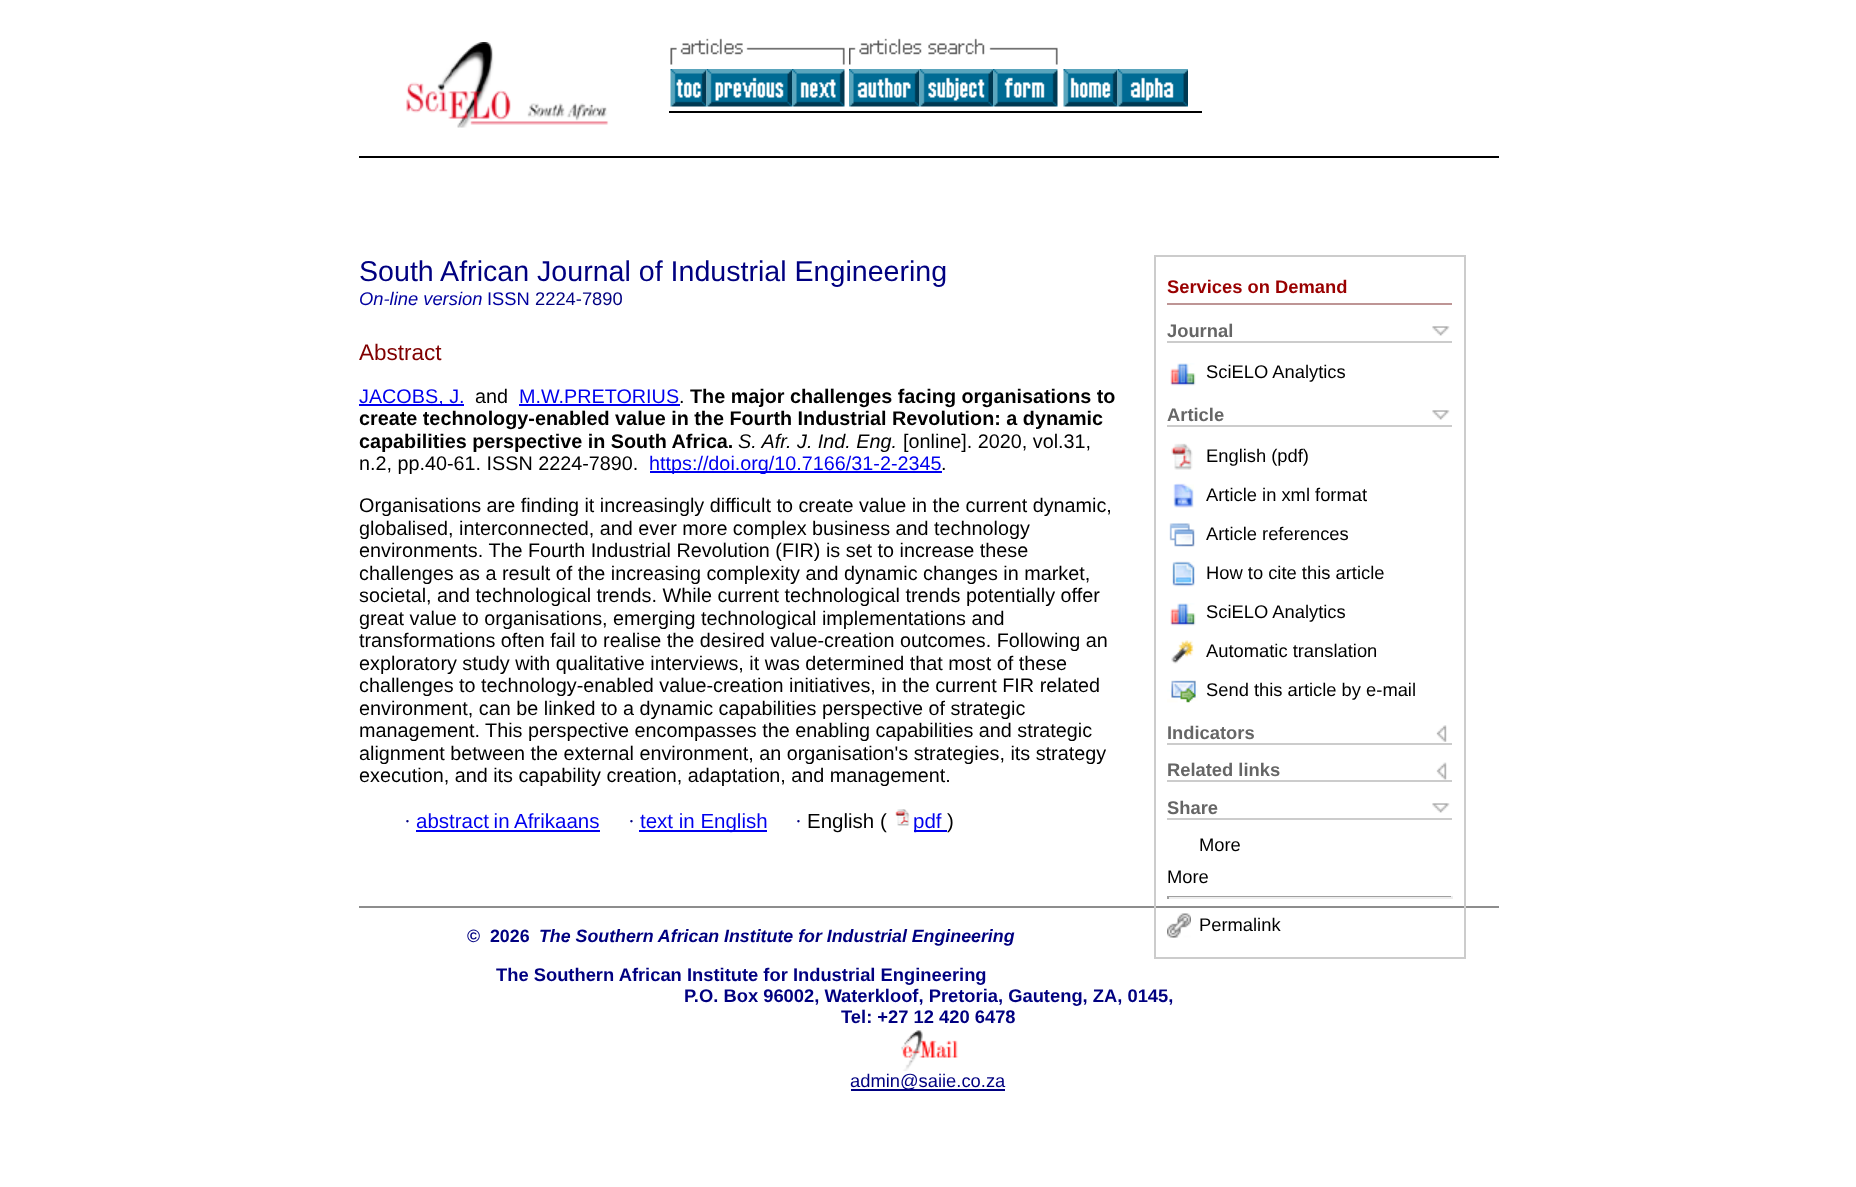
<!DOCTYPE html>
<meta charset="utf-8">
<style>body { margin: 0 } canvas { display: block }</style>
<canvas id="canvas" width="1856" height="1187"></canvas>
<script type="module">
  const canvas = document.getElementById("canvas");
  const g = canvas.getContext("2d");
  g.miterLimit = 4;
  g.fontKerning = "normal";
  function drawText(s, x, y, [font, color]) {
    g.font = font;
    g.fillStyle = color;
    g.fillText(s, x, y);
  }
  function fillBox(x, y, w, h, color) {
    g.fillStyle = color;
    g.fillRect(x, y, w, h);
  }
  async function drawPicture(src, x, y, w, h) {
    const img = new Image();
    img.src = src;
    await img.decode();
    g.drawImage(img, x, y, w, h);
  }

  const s1 = ["28.6px Liberation Sans", "#000080"];
  const s2 = ["italic 18.35px Liberation Sans", "#0000A0"];
  const s3 = ["18.35px Liberation Sans", "#0000A0"];
  const s4 = ["18.35px Liberation Sans", "#000080"];
  const s5 = ["bold 18.35px Liberation Sans", "#990000"];
  const s6 = ["bold 18.35px Liberation Sans", "#666666"];
  const s7 = ["18.35px Liberation Sans", "#000000"];
  const s8 = ["22.5px Liberation Sans", "#800000"];
  const s9 = ["19.8px Liberation Sans", "#0000EE"];
  const s10 = ["19.8px Liberation Sans", "#000000"];
  const s11 = ["bold 19.8px Liberation Sans", "#000000"];
  const s12 = ["italic 19.8px Liberation Sans", "#000000"];
  const s13 = ["20.5px Liberation Serif", "#000080"];
  const s14 = ["20.5px Liberation Sans", "#0000EE"];
  const s15 = ["20.5px Liberation Sans", "#000000"];
  const s16 = ["bold 17.8px Liberation Sans", "#000080"];
  const s17 = ["italic bold 17.8px Liberation Sans", "#000080"];
  const s18 = ["bold 18.35px Liberation Sans", "#000080"];

  fillBox(0, 0, 1856, 1187, "#FFFFFF");
  fillBox(359, 156, 1140, 2, "#000000");
  await drawPicture("pic1.png", 406, 42, 203, 86);
  fillBox(669, 111, 533, 2, "#000000");
  await drawPicture("pic2.png", 670, 38, 175, 27);
  await drawPicture("pic3.png", 849, 38, 209, 27);
  await drawPicture("pic4.png", 670, 69, 37, 38);
  await drawPicture("pic5.png", 706, 69, 86, 38);
  await drawPicture("pic6.png", 792, 69, 53, 38);
  await drawPicture("pic7.png", 849, 69, 71, 38);
  await drawPicture("pic8.png", 919, 69, 74, 38);
  await drawPicture("pic9.png", 993, 69, 65, 38);
  await drawPicture("pic10.png", 1063, 69, 55, 38);
  await drawPicture("pic11.png", 1117, 69, 71, 38);
  fillBox(359, 906, 1140, 2, "#8D8D8D");
  drawText("South African Journal of Industrial Engineering", 359, 281, s1);
  drawText("On-line version", 359, 305, s2);
  drawText("ISSN", 487, 305, s3);
  drawText("2224-7890", 535, 305, s4);
  g.strokeStyle = "#CCCCCC";
  g.lineWidth = 2;
  g.strokeRect(1155, 256, 310, 702);
  fillBox(1167, 303, 285, 2, "#BE9595");
  drawText("Services on Demand", 1167, 293, s5);
  await drawPicture("pic12.png", 1432, 326, 18, 10);
  fillBox(1167, 341, 285, 2, "#CCCCCC");
  drawText("Journal", 1167, 337, s6);
  await drawPicture("pic13.png", 1170, 363, 26, 23);
  drawText("SciELO Analytics", 1206, 378, s7);
  await drawPicture("pic12.png", 1432, 410, 18, 10);
  fillBox(1167, 425, 285, 2, "#CCCCCC");
  drawText("Article", 1167, 421, s6);
  await drawPicture("pic14.png", 1171, 443, 22, 27);
  drawText("English (pdf)", 1206, 462, s7);
  await drawPicture("pic15.png", 1173, 483, 21, 25);
  drawText("Article in xml format", 1206, 501, s7);
  await drawPicture("pic16.png", 1169, 523, 26, 24);
  drawText("Article references", 1206, 540, s7);
  await drawPicture("pic17.png", 1172, 561, 23, 26);
  drawText("How to cite this article", 1206, 579, s7);
  await drawPicture("pic13.png", 1170, 603, 26, 23);
  drawText("SciELO Analytics", 1206, 618, s7);
  await drawPicture("pic18.png", 1171, 640, 23, 24);
  drawText("Automatic translation", 1206, 657, s7);
  await drawPicture("pic19.png", 1167, 680, 31, 23);
  drawText("Send this article by e-mail", 1206, 696, s7);
  await drawPicture("pic20.png", 1436, 725, 11, 17);
  fillBox(1167, 743, 285, 2, "#CCCCCC");
  drawText("Indicators", 1167, 739, s6);
  await drawPicture("pic21.png", 1436, 762, 11, 18);
  fillBox(1167, 780, 285, 2, "#CCCCCC");
  drawText("Related links", 1167, 776, s6);
  await drawPicture("pic12.png", 1432, 803, 18, 10);
  fillBox(1167, 818, 285, 2, "#CCCCCC");
  drawText("Share", 1167, 814, s6);
  drawText("More", 1199, 851, s7);
  drawText("More", 1167, 883, s7);
  fillBox(1167, 896, 285, 1, "#9F9F9F");
  fillBox(1451, 896, 2, 3, "#EEEEEE");
  fillBox(1167, 897, 285, 2, "#EEEEEE");
  fillBox(1167, 896, 2, 3, "#9F9F9F");
  await drawPicture("pic22.png", 1167, 913, 24, 25);
  drawText("Permalink", 1199, 931, s7);
  drawText("Abstract", 359, 360, s8);
  fillBox(359, 404, 105, 2, "#0000EE");
  drawText("JACOBS, J.", 359, 403, s9);
  drawText("and", 475, 403, s10);
  drawText("M.W.PRETORIUS", 519, 403, s9);
  fillBox(519, 404, 161, 2, "#0000EE");
  drawText(".", 679, 403, s10);
  drawText("The major challenges facing organisations to", 690, 403, s11);
  drawText("create technology-enabled value in the Fourth Industrial Revolution: a dynamic", 359, 425, s11);
  drawText("capabilities perspective in South Africa.", 359, 448, s11);
  drawText("S. Afr. J. Ind. Eng.", 738, 448, s12);
  drawText("[online]. 2020, vol.31,", 903, 448, s10);
  drawText("n.2, pp.40-61. ISSN 2224-7890.", 359, 470, s10);
  fillBox(650, 471, 292, 2, "#0000EE");
  drawText("https://doi.org/10.7166/31-2-2345", 649, 470, s9);
  drawText(".", 941, 470, s10);
  drawText("Organisations are finding it increasingly difficult to create value in the current dynamic,", 359, 512, s10);
  drawText("globalised, interconnected, and ever more complex business and technology", 359, 535, s10);
  drawText("environments. The Fourth Industrial Revolution (FIR) is set to increase these", 359, 557, s10);
  drawText("challenges as a result of the increasing complexity and dynamic changes in market,", 359, 580, s10);
  drawText("societal, and technological trends. While current technological trends potentially offer", 359, 602, s10);
  drawText("great value to organisations, emerging technological implementations and", 359, 625, s10);
  drawText("transformations often fail to realise the desired value-creation outcomes. Following an", 359, 647, s10);
  drawText("exploratory study with qualitative interviews, it was determined that most of these", 359, 670, s10);
  drawText("challenges to technology-enabled value-creation initiatives, in the current FIR related", 359, 692, s10);
  drawText("environment, can be linked to a dynamic capabilities perspective of strategic", 359, 715, s10);
  drawText("management. This perspective encompasses the enabling capabilities and strategic", 359, 737, s10);
  drawText("alignment between the external environment, an organisation's strategies, its strategy", 359, 760, s10);
  drawText("execution, and its capability creation, adaptation, and management.", 359, 782, s10);
  drawText("·", 404, 828, s13);
  g.wordSpacing = "-1px";
  drawText("abstract in", 416, 828, s14);
  fillBox(416, 830, 184, 2, "#0000EE");
  g.wordSpacing = "0px";
  drawText("Afrikaans", 514, 828, s14);
  drawText("·", 628, 828, s13);
  fillBox(639, 830, 128, 2, "#0000EE");
  drawText("text in English", 640, 828, s14);
  drawText("·", 795, 828, s13);
  drawText("English (", 807, 828, s15);
  await drawPicture("pic23.png", 895, 809, 15, 17);
  fillBox(914, 830, 33, 2, "#0000EE");
  drawText("pdf", 913, 828, s14);
  drawText(")", 947, 828, s15);
  drawText("©  2026", 467, 942, s16);
  drawText("The Southern African Institute for Industrial Engineering", 539, 942, s17);
  drawText("The Southern African Institute for Industrial Engineering", 496, 981, s18);
  drawText("P.O. Box 96002, Waterkloof, Pretoria, Gauteng, ZA, 0145,", 684, 1002, s18);
  drawText("Tel: +27 12 420 6478", 841, 1023, s18);
  await drawPicture("pic24.png", 901, 1030, 58, 41);
  fillBox(851, 1089, 154, 2, "#000080");
  drawText("admin@saiie.co.za", 850, 1087, s4);
</script>
